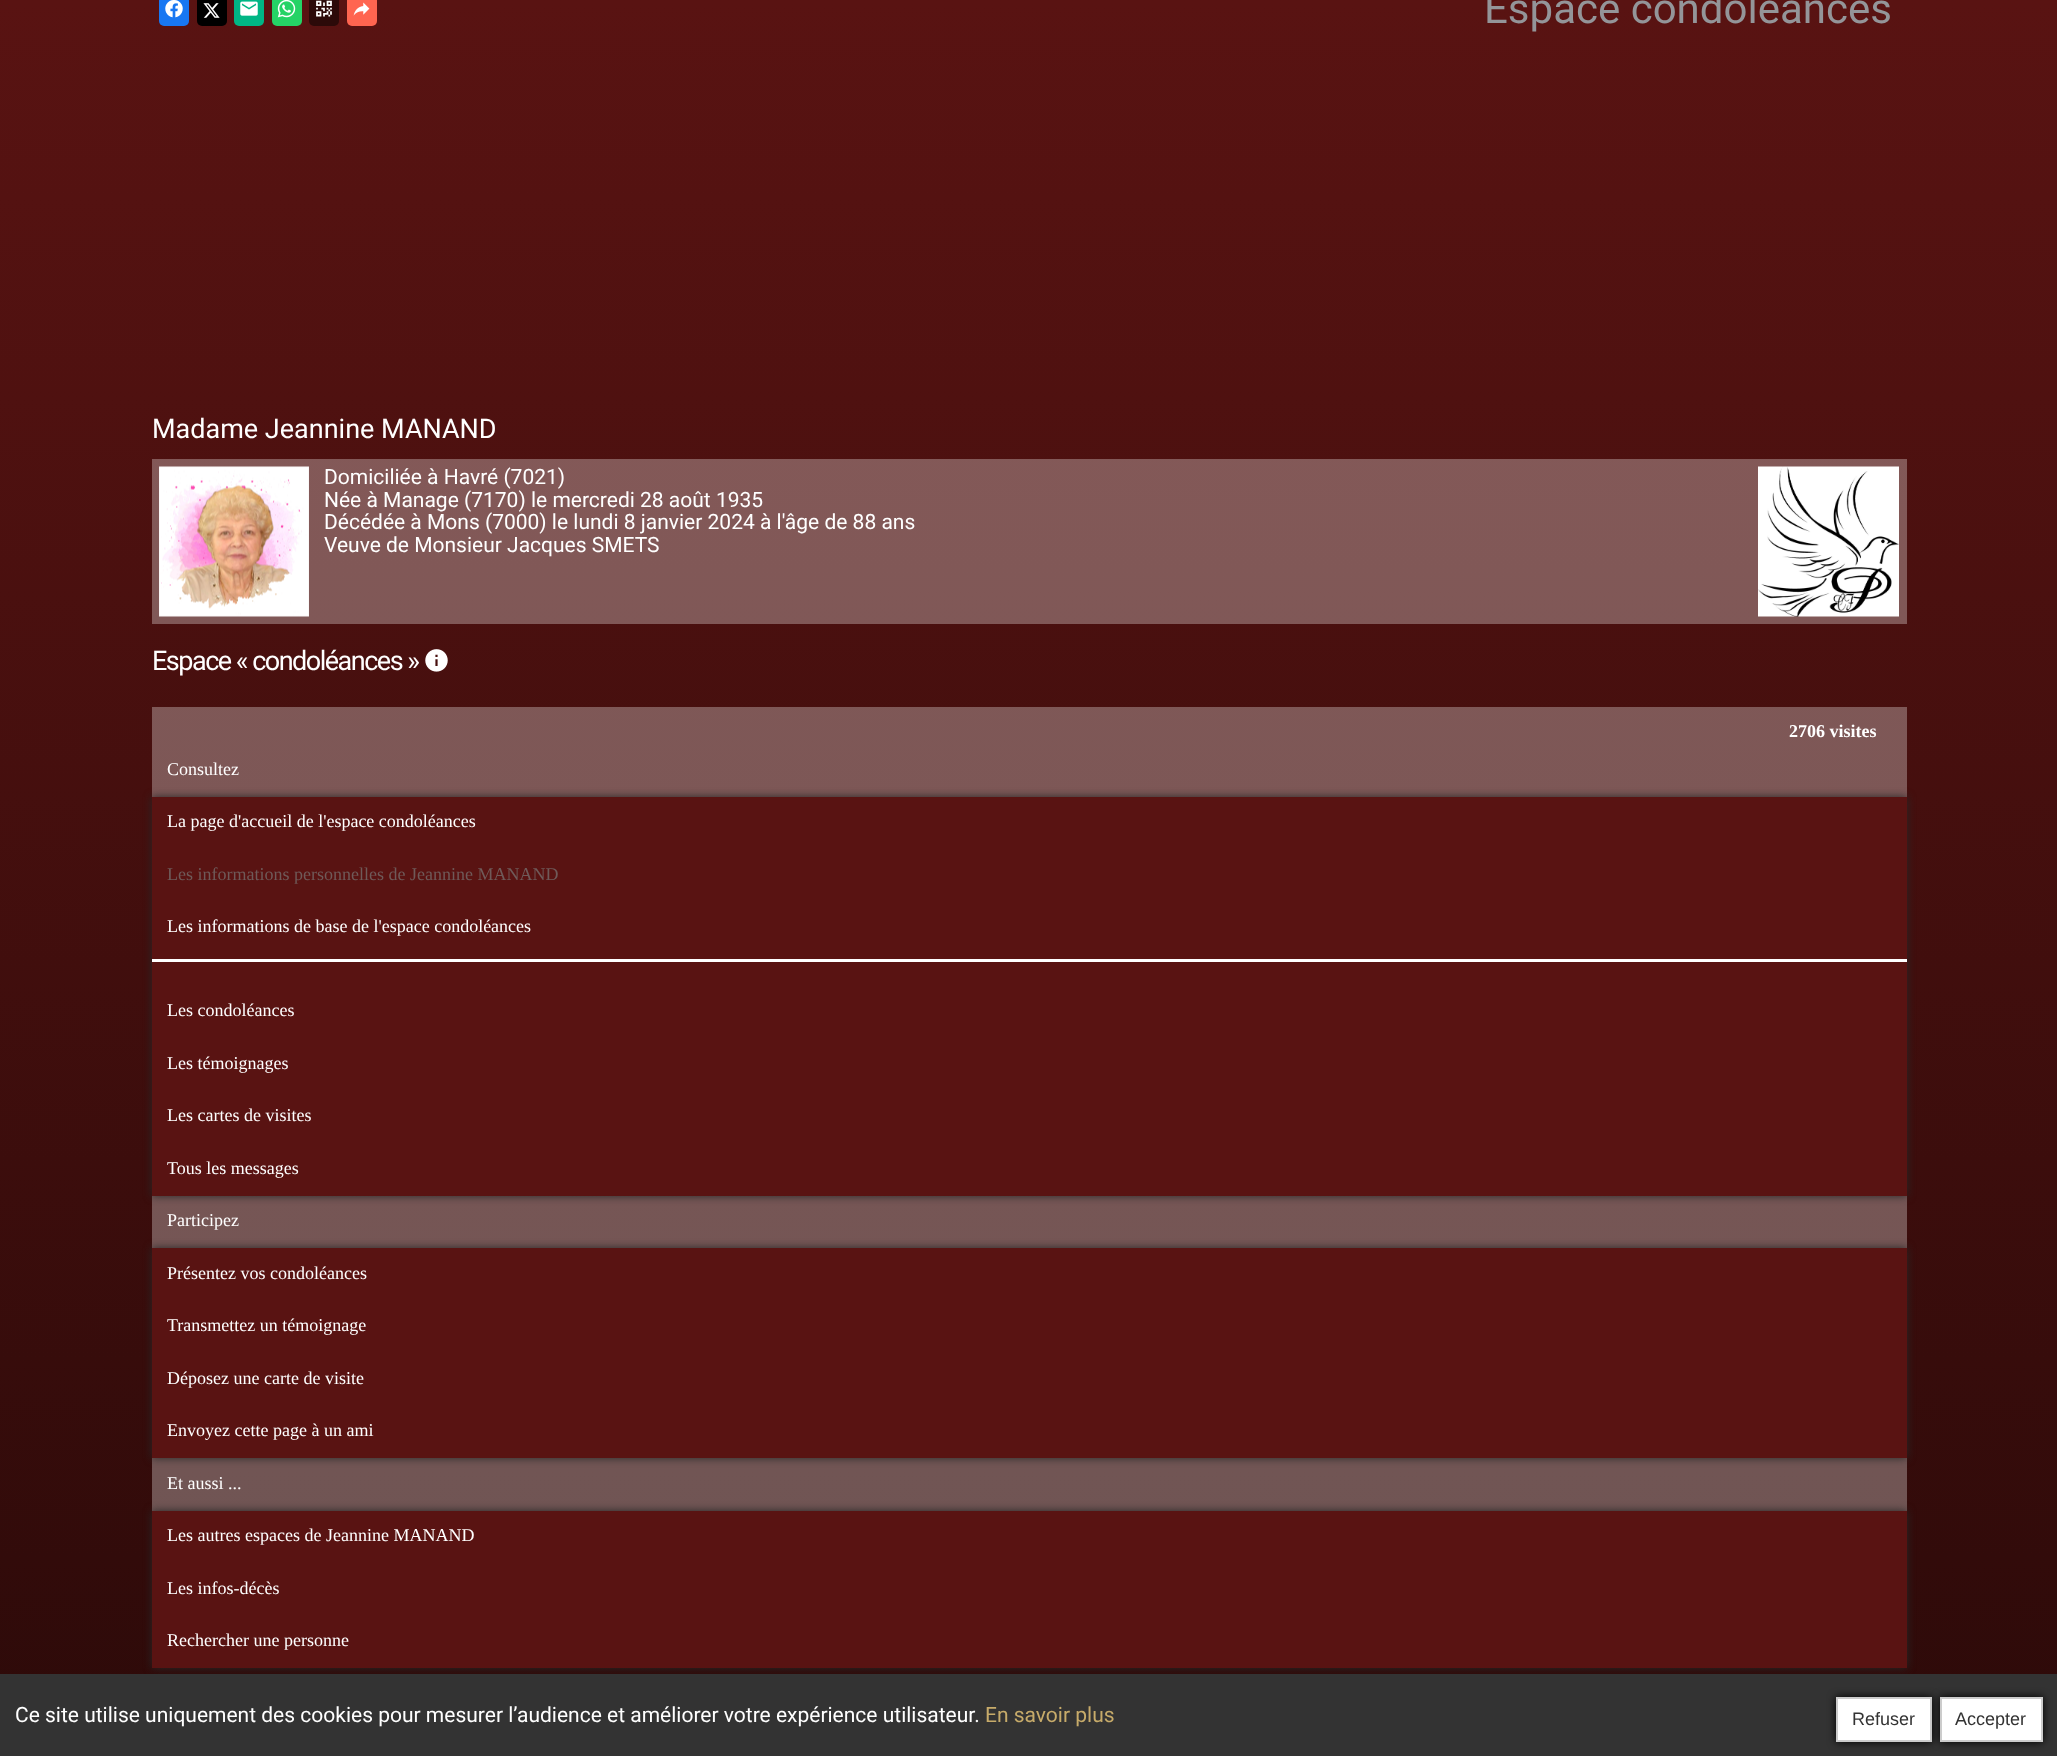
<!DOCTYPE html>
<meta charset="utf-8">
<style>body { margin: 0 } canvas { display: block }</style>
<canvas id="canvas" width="2057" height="1756"></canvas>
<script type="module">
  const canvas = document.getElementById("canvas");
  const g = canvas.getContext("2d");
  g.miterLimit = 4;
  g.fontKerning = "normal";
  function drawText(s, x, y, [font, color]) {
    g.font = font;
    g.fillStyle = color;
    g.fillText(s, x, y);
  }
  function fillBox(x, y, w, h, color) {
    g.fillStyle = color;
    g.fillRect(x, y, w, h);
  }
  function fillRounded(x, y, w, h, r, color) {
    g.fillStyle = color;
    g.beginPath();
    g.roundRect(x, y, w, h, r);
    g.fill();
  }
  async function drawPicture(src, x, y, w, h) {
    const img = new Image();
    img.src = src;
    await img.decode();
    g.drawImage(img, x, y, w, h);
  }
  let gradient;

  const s1 = ["42px Roboto", "#949599"];
  const s2 = ["27px Roboto", "#FFFFFF"];
  const s3 = ["21px Roboto", "#FFFFFF"];
  const s4 = ["bold 18px Liberation Serif", "#FFFFFF"];
  const s5 = ["18px Liberation Serif", "#FFFFFF"];
  const s6 = ["18px Liberation Serif", "#6F5A59"];
  const s7 = ["21px Roboto", "#C7AB6A"];
  const s8 = ["18px Liberation Sans", "#333333"];

  fillBox(0, 0, 2057, 1756, "#FFFFFF");
  gradient = g.createLinearGradient(1029, 0, 1029, 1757);
  gradient.addColorStop(0, "#591312");
  gradient.addColorStop(1, "#2D0A09");
  g.fillStyle = gradient;
  g.fillRect(0, 0, 2057, 1674);
  gradient = g.createLinearGradient(1029, 0, 1029, 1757);
  gradient.addColorStop(0, "#8B5A59");
  gradient.addColorStop(1, "#6C5453");
  g.fillStyle = gradient;
  g.fillRect(152, 459, 1755, 165);
  g.fillRect(152, 707, 1755, 804);
  fillRounded(159, -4, 30, 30, 5, "#1877F2");
  await drawPicture("pic1.png", 165, 0, 18, 18);
  fillRounded(197, -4, 30, 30, 5, "#000000");
  await drawPicture("pic2.png", 203, 3, 17, 15);
  fillRounded(234, -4, 30, 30, 5, "#00B685");
  await drawPicture("pic3.png", 240, 1, 18, 15);
  fillRounded(272, -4, 30, 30, 5, "#25D366");
  await drawPicture("pic4.png", 277, 0, 19, 18);
  fillRounded(309, -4, 30, 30, 5, "#2C0A09");
  await drawPicture("pic5.png", 316, 0, 16, 17);
  fillRounded(347, -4, 30, 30, 5, "#FF6550");
  await drawPicture("pic6.png", 353, 2, 17, 14);
  drawText("Espace condoléances", 1484, 23, s1);
  drawText("Madame Jeannine MANAND", 152, 438, s2);
  await drawPicture("pic7.png", 159, 466, 150, 151);
  drawText("Domiciliée à Havré (7021)", 324, 484, s3);
  drawText("Née à Manage (7170) le mercredi 28 août 1935", 324, 507, s3);
  drawText("Décédée à Mons (7000) le lundi 8 janvier 2024 à l'âge de 88 ans", 324, 529, s3);
  drawText("Veuve de Monsieur Jacques SMETS", 324, 552, s3);
  await drawPicture("pic8.png", 1758, 466, 141, 151);
  g.letterSpacing = "-1.5px";
  drawText("Espace « condoléances »", 152, 670, s2);
  await drawPicture("pic9.png", 425, 649, 23, 23);
  g.letterSpacing = "0px";
  drawText("2706 visites", 1789, 737, s4);
  drawText("Consultez", 167, 775, s5);
  g.fillStyle = "#272727";
  g.filter = "blur(4px)";
  g.beginPath();
  g.rect(152, 797, 1755, 399);
  g.fill();
  g.filter = "none";
  fillBox(152, 797, 1755, 399, "#591312");
  drawText("La page d'accueil de l'espace condoléances", 167, 827, s5);
  drawText("Les informations personnelles de Jeannine MANAND", 167, 880, s6);
  drawText("Les informations de base de l'espace condoléances", 167, 932, s5);
  fillBox(152, 959, 1755, 3, "#FFFFFF");
  drawText("Les condoléances", 167, 1016, s5);
  drawText("Les témoignages", 167, 1069, s5);
  drawText("Les cartes de visites", 167, 1121, s5);
  drawText("Tous les messages", 167, 1174, s5);
  drawText("Participez", 167, 1226, s5);
  g.fillStyle = "#272727";
  g.filter = "blur(4px)";
  g.beginPath();
  g.rect(152, 1248, 1755, 210);
  g.fill();
  g.filter = "none";
  fillBox(152, 1248, 1755, 210, "#591312");
  drawText("Présentez vos condoléances", 167, 1279, s5);
  drawText("Transmettez un témoignage", 167, 1331, s5);
  drawText("Déposez une carte de visite", 167, 1384, s5);
  drawText("Envoyez cette page à un ami", 167, 1436, s5);
  drawText("Et aussi ...", 167, 1489, s5);
  g.fillStyle = "#272727";
  g.filter = "blur(4px)";
  g.beginPath();
  g.rect(152, 1511, 1755, 157);
  g.fill();
  g.filter = "none";
  fillBox(152, 1511, 1755, 157, "#591312");
  drawText("Les autres espaces de Jeannine MANAND", 167, 1541, s5);
  drawText("Les infos-décès", 167, 1594, s5);
  drawText("Rechercher une personne", 167, 1646, s5);
  fillBox(0, 1674, 2057, 82, "#333333");
  drawText("Ce site utilise uniquement des cookies pour mesurer l’audience et améliorer votre expérience utilisateur.", 15, 1722, s3);
  drawText("En savoir plus", 985, 1722, s7);
  g.fillStyle = "#000000";
  g.filter = "blur(4px)";
  g.beginPath();
  g.rect(1836, 1697, 96, 45);
  g.fill();
  g.filter = "none";
  g.fillStyle = "#FFFFFF";
  g.beginPath();
  g.rect(1837, 1698, 94, 43);
  g.fill();
  g.strokeStyle = "#CCCCCC";
  g.lineWidth = 2;
  g.stroke();
  drawText("Refuser", 1852, 1725, s8);
  g.fillStyle = "#000000";
  g.filter = "blur(4px)";
  g.beginPath();
  g.rect(1940, 1697, 103, 45);
  g.fill();
  g.filter = "none";
  g.fillStyle = "#FFFFFF";
  g.beginPath();
  g.rect(1941, 1698, 101, 43);
  g.fill();
  g.stroke();
  drawText("Accepter", 1955, 1725, s8);
</script>
